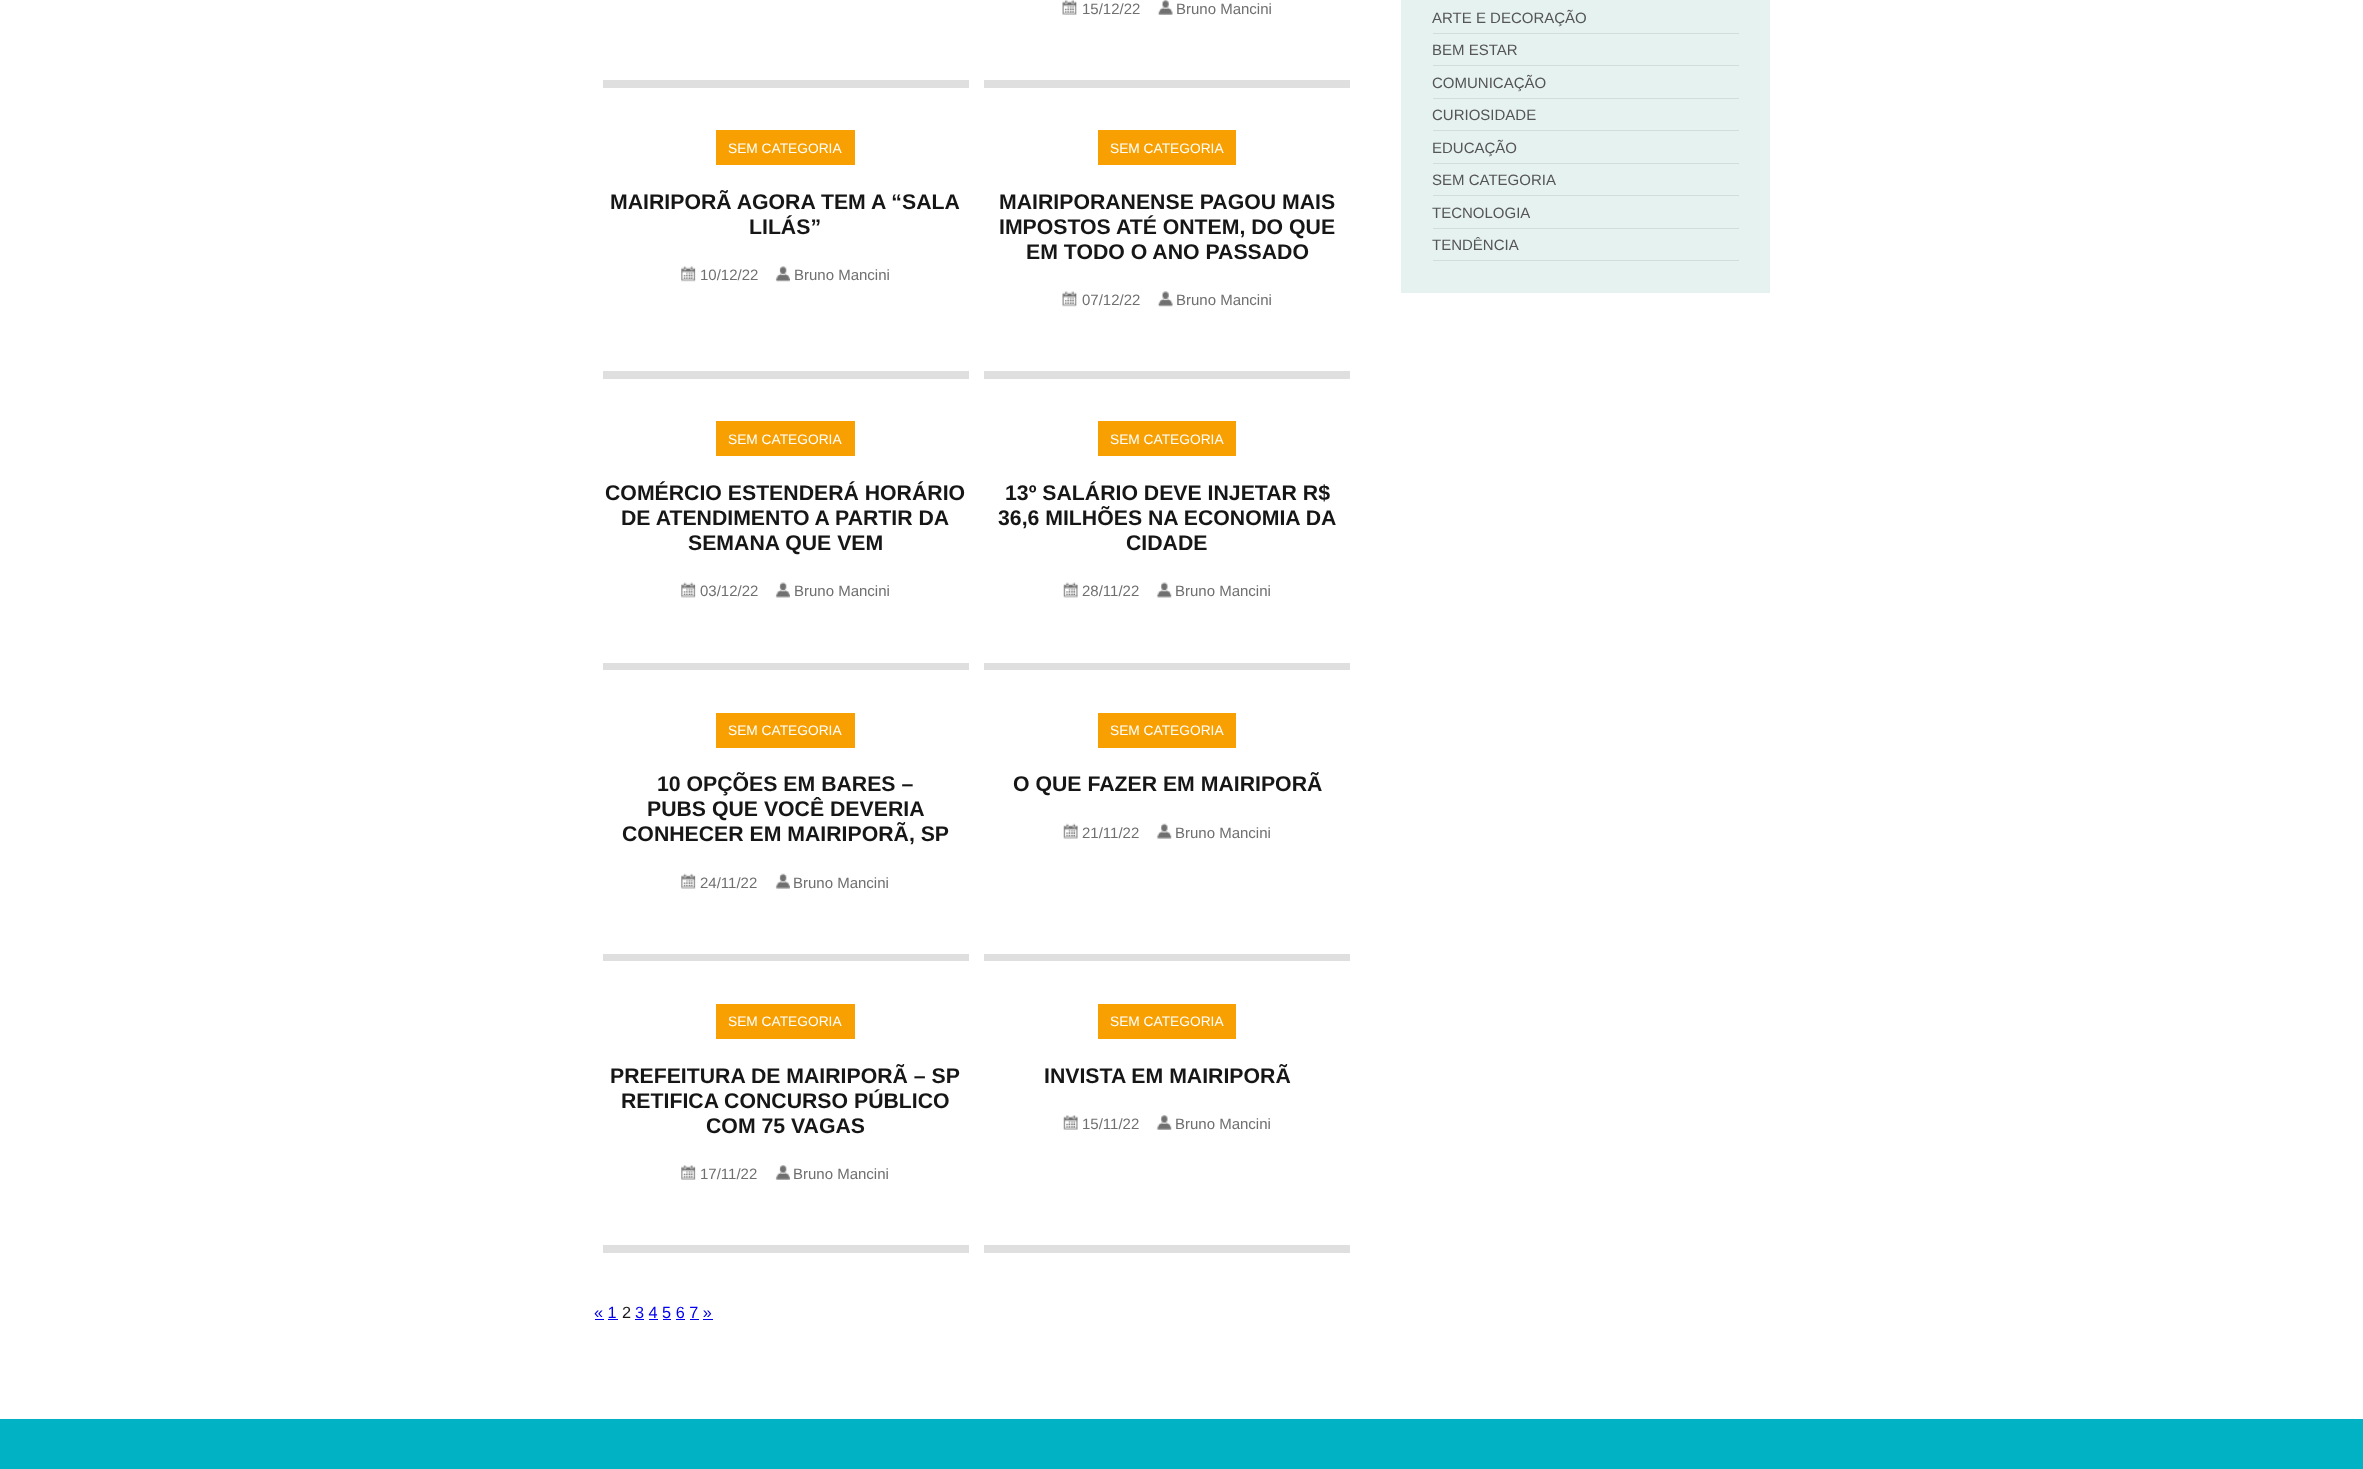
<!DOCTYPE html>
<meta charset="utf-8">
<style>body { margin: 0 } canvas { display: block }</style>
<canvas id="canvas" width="2363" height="1469"></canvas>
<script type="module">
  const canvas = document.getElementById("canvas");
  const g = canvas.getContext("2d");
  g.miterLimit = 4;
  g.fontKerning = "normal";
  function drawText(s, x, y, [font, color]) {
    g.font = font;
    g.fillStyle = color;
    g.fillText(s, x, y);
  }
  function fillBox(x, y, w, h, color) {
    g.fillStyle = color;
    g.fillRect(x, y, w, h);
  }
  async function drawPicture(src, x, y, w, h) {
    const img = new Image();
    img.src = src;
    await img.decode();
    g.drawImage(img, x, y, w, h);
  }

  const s1 = ["15px Arimo", "#6F6F6F"];
  const s2 = ["13.75px Arimo", "#FFFFFF"];
  const s3 = ["bold 21.25px Arimo", "#161616"];
  const s4 = ["16.25px Arimo", "#0000EE"];
  const s5 = ["16.25px Arimo", "#161616"];
  const s6 = ["15px Arimo", "#555555"];

  fillBox(0, 0, 2363, 1469, "#FFFFFF");
  fillBox(984, 80, 366, 8, "#DFDFDF");
  await drawPicture("pic1.png", 1062, 0, 15, 15);
  drawText("15/12/22", 1082, 14, s1);
  await drawPicture("pic2.png", 1157, 0, 16, 15);
  drawText("Bruno Mancini", 1176, 14, s1);
  fillBox(603, 80, 366, 8, "#DFDFDF");
  fillBox(603, 371, 366, 8, "#DFDFDF");
  fillBox(716, 130, 139, 35, "#F8A001");
  drawText("SEM CATEGORIA", 728, 153, s2);
  drawText("MAIRIPORÃ AGORA TEM A “SALA", 610, 209, s3);
  drawText("LILÁS”", 749, 234, s3);
  await drawPicture("pic3.png", 681, 266, 15, 16);
  drawText("10/12/22", 700, 280, s1);
  await drawPicture("pic4.png", 775, 266, 15, 16);
  drawText("Bruno Mancini", 794, 280, s1);
  fillBox(984, 371, 366, 8, "#DFDFDF");
  fillBox(1098, 130, 138, 35, "#F8A001");
  drawText("SEM CATEGORIA", 1110, 153, s2);
  drawText("MAIRIPORANENSE PAGOU MAIS", 999, 209, s3);
  drawText("IMPOSTOS ATÉ ONTEM, DO QUE", 999, 234, s3);
  drawText("EM TODO O ANO PASSADO", 1026, 259, s3);
  await drawPicture("pic5.png", 1062, 291, 15, 16);
  drawText("07/12/22", 1082, 305, s1);
  await drawPicture("pic6.png", 1157, 291, 16, 16);
  drawText("Bruno Mancini", 1176, 305, s1);
  fillBox(603, 663, 366, 7, "#DFDFDF");
  fillBox(716, 421, 139, 35, "#F8A001");
  drawText("SEM CATEGORIA", 728, 444, s2);
  drawText("COMÉRCIO ESTENDERÁ HORÁRIO", 605, 500, s3);
  drawText("DE ATENDIMENTO A PARTIR DA", 621, 525, s3);
  drawText("SEMANA QUE VEM", 688, 550, s3);
  await drawPicture("pic7.png", 681, 582, 15, 16);
  drawText("03/12/22", 700, 596, s1);
  await drawPicture("pic8.png", 775, 582, 15, 16);
  drawText("Bruno Mancini", 794, 596, s1);
  fillBox(984, 663, 366, 7, "#DFDFDF");
  fillBox(1098, 421, 138, 35, "#F8A001");
  drawText("SEM CATEGORIA", 1110, 444, s2);
  drawText("13º SALÁRIO DEVE INJETAR R$", 1005, 500, s3);
  drawText("36,6 MILHÕES NA ECONOMIA DA", 998, 525, s3);
  drawText("CIDADE", 1126, 550, s3);
  await drawPicture("pic9.png", 1063, 582, 15, 16);
  drawText("28/11/22", 1082, 596, s1);
  await drawPicture("pic10.png", 1156, 582, 16, 16);
  drawText("Bruno Mancini", 1175, 596, s1);
  fillBox(603, 954, 366, 7, "#DFDFDF");
  fillBox(716, 713, 139, 35, "#F8A001");
  drawText("SEM CATEGORIA", 728, 735, s2);
  drawText("10 OPÇÕES EM BARES –", 657, 791, s3);
  drawText("PUBS QUE VOCÊ DEVERIA", 647, 816, s3);
  drawText("CONHECER EM MAIRIPORÃ, SP", 622, 841, s3);
  await drawPicture("pic11.png", 681, 873, 15, 16);
  drawText("24/11/22", 700, 888, s1);
  await drawPicture("pic12.png", 775, 873, 15, 16);
  drawText("Bruno Mancini", 793, 888, s1);
  fillBox(984, 954, 366, 7, "#DFDFDF");
  fillBox(1098, 713, 138, 35, "#F8A001");
  drawText("SEM CATEGORIA", 1110, 735, s2);
  drawText("O QUE FAZER EM MAIRIPORÃ", 1013, 791, s3);
  await drawPicture("pic13.png", 1063, 823, 15, 16);
  drawText("21/11/22", 1082, 838, s1);
  await drawPicture("pic14.png", 1156, 823, 16, 16);
  drawText("Bruno Mancini", 1175, 838, s1);
  fillBox(603, 1245, 366, 8, "#DFDFDF");
  fillBox(716, 1004, 139, 35, "#F8A001");
  drawText("SEM CATEGORIA", 728, 1026, s2);
  drawText("PREFEITURA DE MAIRIPORÃ – SP", 610, 1083, s3);
  drawText("RETIFICA CONCURSO PÚBLICO", 621, 1108, s3);
  drawText("COM 75 VAGAS", 706, 1133, s3);
  await drawPicture("pic15.png", 681, 1165, 15, 15);
  drawText("17/11/22", 700, 1179, s1);
  await drawPicture("pic16.png", 775, 1165, 15, 15);
  drawText("Bruno Mancini", 793, 1179, s1);
  fillBox(984, 1245, 366, 8, "#DFDFDF");
  fillBox(1098, 1004, 138, 35, "#F8A001");
  drawText("SEM CATEGORIA", 1110, 1026, s2);
  drawText("INVISTA EM MAIRIPORÃ", 1044, 1083, s3);
  await drawPicture("pic17.png", 1063, 1115, 15, 15);
  drawText("15/11/22", 1082, 1129, s1);
  await drawPicture("pic18.png", 1156, 1115, 16, 15);
  drawText("Bruno Mancini", 1175, 1129, s1);
  drawText("« 1", 594, 1318, s4);
  fillBox(595, 1319, 9, 1, "#0000EE");
  drawText("2", 622, 1318, s5);
  drawText("3 4 5 6 7 »", 635, 1318, s4);
  fillBox(635, 1319, 9, 1, "#0000EE");
  fillBox(608, 1319, 10, 1, "#0000EE");
  fillBox(649, 1319, 9, 1, "#0000EE");
  fillBox(663, 1319, 8, 1, "#0000EE");
  fillBox(676, 1319, 9, 1, "#0000EE");
  fillBox(690, 1319, 9, 1, "#0000EE");
  fillBox(703, 1319, 10, 1, "#0000EE");
  fillBox(1401, 0, 369, 293, "#E6F2F0");
  fillBox(1433, 33, 306, 1, "#CFDEDB");
  drawText("ARTE E DECORAÇÃO", 1432, 23, s6);
  fillBox(1433, 65, 306, 1, "#CFDEDB");
  drawText("BEM ESTAR", 1432, 55, s6);
  fillBox(1433, 98, 306, 1, "#CFDEDB");
  drawText("COMUNICAÇÃO", 1432, 88, s6);
  fillBox(1433, 130, 306, 1, "#CFDEDB");
  drawText("CURIOSIDADE", 1432, 120, s6);
  fillBox(1433, 163, 306, 1, "#CFDEDB");
  drawText("EDUCAÇÃO", 1432, 153, s6);
  fillBox(1433, 195, 306, 1, "#CFDEDB");
  drawText("SEM CATEGORIA", 1432, 185, s6);
  fillBox(1433, 228, 306, 1, "#CFDEDB");
  drawText("TECNOLOGIA", 1432, 218, s6);
  fillBox(1433, 260, 306, 1, "#CFDEDB");
  drawText("TENDÊNCIA", 1432, 250, s6);
  fillBox(0, 1419, 2363, 50, "#00B2C3");
</script>
